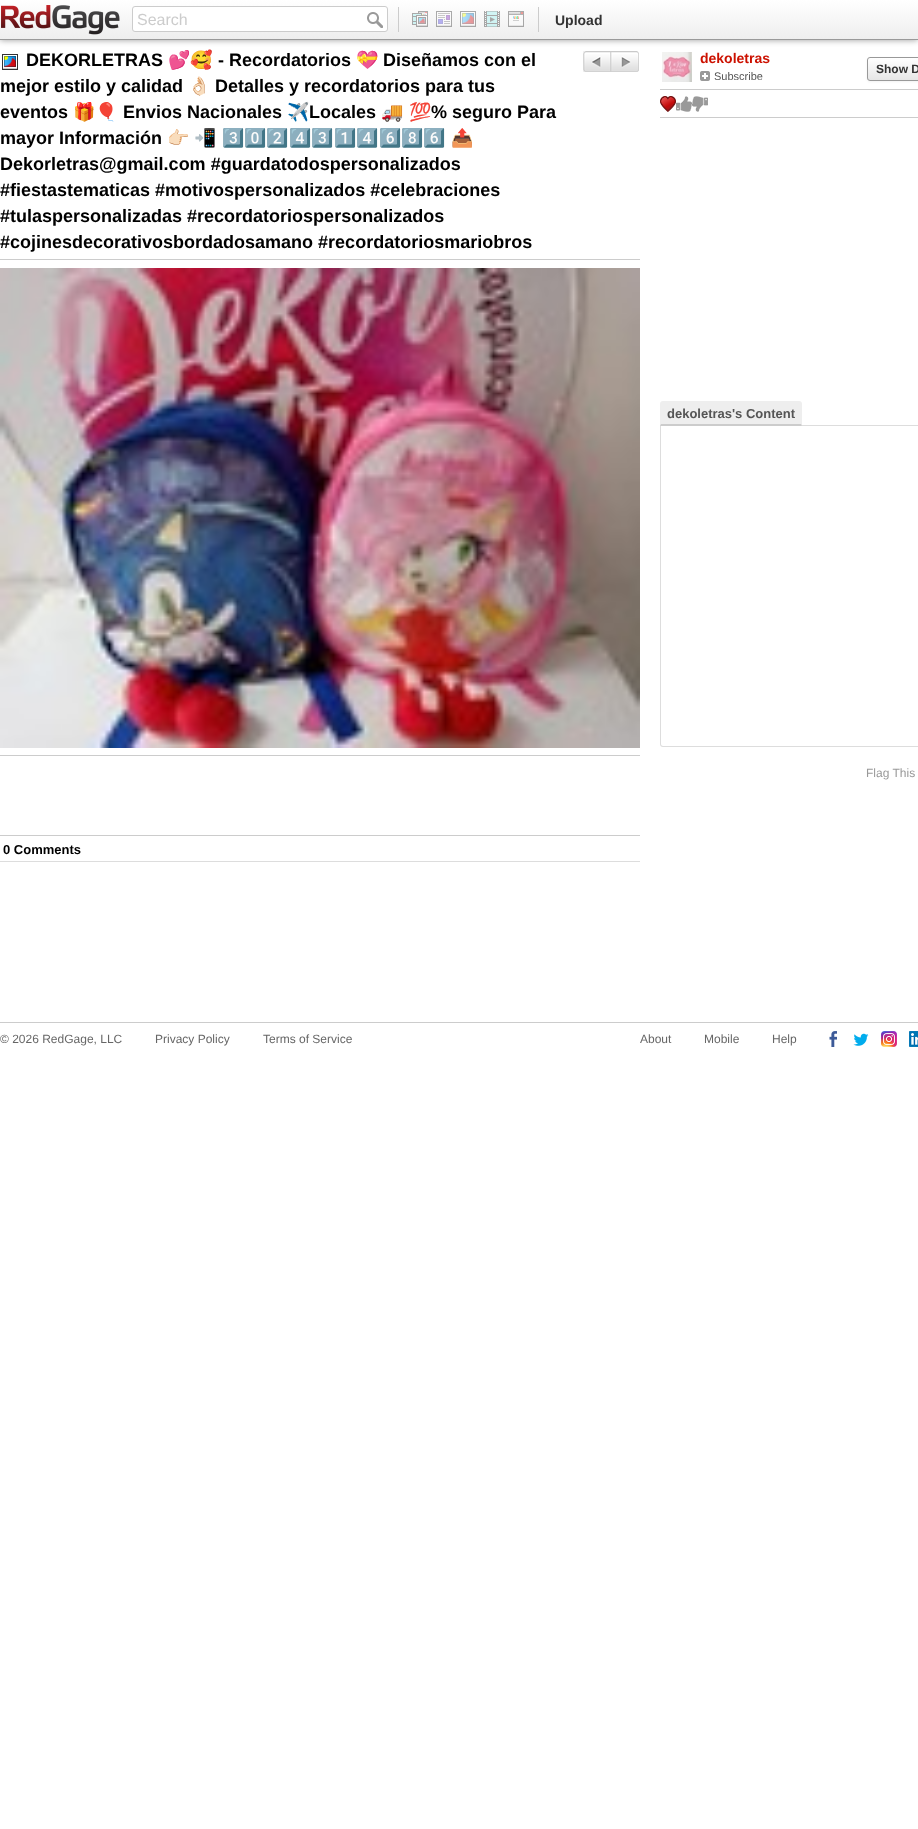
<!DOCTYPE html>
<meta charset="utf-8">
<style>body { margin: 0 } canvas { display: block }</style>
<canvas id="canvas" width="918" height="1829"></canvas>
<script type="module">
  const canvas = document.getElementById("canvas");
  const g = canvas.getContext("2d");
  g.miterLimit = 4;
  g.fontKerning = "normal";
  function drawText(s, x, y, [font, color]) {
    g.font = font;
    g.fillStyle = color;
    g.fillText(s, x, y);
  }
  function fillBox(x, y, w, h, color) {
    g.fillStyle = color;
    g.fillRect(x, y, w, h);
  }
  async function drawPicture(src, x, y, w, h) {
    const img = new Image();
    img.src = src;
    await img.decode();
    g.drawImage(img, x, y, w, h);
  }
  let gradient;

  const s1 = ["16px Liberation Sans", "#CCCCCC"];
  const s2 = ["bold 14px Liberation Sans", "#333333"];
  const s3 = ["bold 18px Liberation Sans", "#000000"];
  const s4 = ["bold 18px Noto Color Emoji", "#000000"];
  const s5 = ["bold 13px Liberation Sans", "#000000"];
  const s6 = ["bold 14px Liberation Sans", "#CC1100"];
  const s7 = ["11px Liberation Sans", "#555555"];
  const s8 = ["bold 12px Liberation Sans", "#333333"];
  const s9 = ["bold 13px Liberation Sans", "#555555"];
  const s10 = ["12px Liberation Sans", "#999999"];
  const s11 = ["12px Liberation Sans", "#666666"];

  fillBox(0, 0, 918, 1829, "#FFFFFF");
  g.fillStyle = "rgba(0, 0, 0, 0.4)";
  g.filter = "blur(3px)";
  g.beginPath();
  g.rect(0, 0, 918, 40);
  g.fill();
  g.filter = "none";
  gradient = g.createLinearGradient(459, 0, 459, 39);
  gradient.addColorStop(0, "#FFFFFF");
  gradient.addColorStop(1, "#EEEEEE");
  g.fillStyle = gradient;
  g.fillRect(0, 0, 918, 39);
  fillBox(0, 39, 918, 1, "#999999");
  await drawPicture("pic1.png", 1, 5, 119, 30);
  g.fillStyle = "#FFFFFF";
  g.beginPath();
  g.roundRect(132.5, 6.5, 255, 25, 2.5);
  g.fill();
  g.strokeStyle = "#CCCCCC";
  g.stroke();
  drawText("Search", 137, 25, s1);
  await drawPicture("pic2.png", 367, 12, 16, 16);
  fillBox(538, 7, 1, 25, "#CCCCCC");
  fillBox(398, 7, 1, 25, "#CCCCCC");
  await drawPicture("pic3.png", 412, 11, 16, 16);
  await drawPicture("pic4.png", 436, 11, 16, 16);
  await drawPicture("pic5.png", 460, 11, 16, 16);
  await drawPicture("pic6.png", 484, 11, 16, 16);
  await drawPicture("pic7.png", 508, 11, 16, 16);
  drawText("Upload", 555, 25, s2);
  fillBox(0, 259, 640, 1, "#CCCCCC");
  await drawPicture("pic8.png", 2, 54, 16, 16);
  drawText("DEKORLETRAS", 26, 66, s3);
  drawText("💕🥰", 168, 66, s4);
  drawText("- Recordatorios", 218, 66, s3);
  drawText("💝", 356, 66, s4);
  drawText("Diseñamos con el", 383, 66, s3);
  await drawPicture("pic9.png", 583, 51, 27, 21);
  await drawPicture("pic10.png", 610, 51, 29, 21);
  drawText("mejor estilo y calidad", 0, 92, s3);
  drawText("👌🏻", 188, 92, s4);
  drawText("Detalles y recordatorios para tus", 215, 92, s3);
  drawText("eventos", 0, 118, s3);
  drawText("🎁🎈", 73, 118, s4);
  drawText("Envios Nacionales", 123, 118, s3);
  drawText("✈️", 287, 118, s4);
  drawText("Locales", 309, 118, s3);
  drawText("🚚", 381, 118, s4);
  drawText("💯", 409, 118, s4);
  drawText("% seguro Para", 431, 118, s3);
  drawText("mayor Información", 0, 144, s3);
  drawText("👉🏻", 167, 144, s4);
  drawText("📲", 194, 144, s4);
  drawText("3️⃣0️⃣2️⃣4️⃣3️⃣1️⃣4️⃣6️⃣8️⃣6️⃣", 222, 144, s4);
  drawText("📤", 451, 144, s4);
  drawText("Dekorletras@gmail.com #guardatodospersonalizados", 0, 170, s3);
  drawText("#fiestastematicas #motivospersonalizados #celebraciones", 0, 196, s3);
  drawText("#tulaspersonalizadas #recordatoriospersonalizados", 0, 222, s3);
  drawText("#cojinesdecorativosbordadosamano #recordatoriosmariobros", 0, 248, s3);
  await drawPicture("pic11.png", 0, 268, 640, 480);
  fillBox(0, 755, 640, 1, "#CCCCCC");
  fillBox(0, 835, 640, 1, "#CCCCCC");
  fillBox(0, 861, 640, 1, "#DDDDDD");
  drawText("0 Comments", 3, 854, s5);
  await drawPicture("pic12.png", 662, 52, 30, 30);
  drawText("dekoletras", 700, 63, s6);
  await drawPicture("pic13.png", 700, 71, 10, 10);
  drawText("Subscribe", 714, 80, s7);
  g.fillStyle = "rgba(0, 0, 0, 0.05)";
  g.filter = "blur(1px)";
  g.beginPath();
  g.roundRect(867, 58, 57, 24, 3);
  g.fill();
  g.filter = "none";
  g.save();
  g.beginPath();
  g.roundRect(867, 57, 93, 24, 3);
  g.clip();
  gradient = g.createLinearGradient(914, 58, 914, 80);
  gradient.addColorStop(0, "#FFFFFF");
  gradient.addColorStop(1, "#E6E6E6");
  g.fillStyle = gradient;
  g.fillRect(867, 58, 51, 22);
  g.restore();
  g.beginPath();
  g.roundRect(867.5, 57.5, 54, 23, 2.5);
  g.strokeStyle = "#999999";
  g.stroke();
  drawText("Show D", 876, 73, s8);
  fillBox(660, 89, 258, 1, "#CCCCCC");
  fillBox(660, 117, 258, 1, "#CCCCCC");
  await drawPicture("pic14.png", 660, 96, 16, 16);
  await drawPicture("pic15.png", 676, 96, 16, 16);
  await drawPicture("pic16.png", 692, 96, 16, 16);
  fillBox(802, 425, 116, 1, "#DDDDDD");
  g.fillStyle = "#EEEEEE";
  g.beginPath();
  g.roundRect(660, 401, 142, 25, [3, 3, 0, 0]);
  g.fill();
  g.fillStyle = "#CCCCCC";
  g.beginPath();
  g.moveTo(802, 426);
  g.lineTo(801, 424);
  g.lineTo(661, 424);
  g.lineTo(660, 426);
  g.closePath();
  g.fill();
  drawText("dekoletras's Content", 667, 418, s9);
  g.fillStyle = "#DDDDDD";
  g.beginPath();
  g.moveTo(660, 426);
  g.lineTo(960, 426);
  g.lineTo(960, 744);
  g.bezierCurveTo(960, 746, 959, 747, 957, 747);
  g.lineTo(663, 747);
  g.bezierCurveTo(661, 747, 660, 746, 660, 744);
  g.closePath();
  g.moveTo(661, 426);
  g.lineTo(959, 426);
  g.lineTo(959, 744);
  g.bezierCurveTo(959, 745, 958, 746, 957, 746);
  g.lineTo(663, 746);
  g.bezierCurveTo(662, 746, 661, 745, 661, 744);
  g.closePath();
  g.fill("evenodd");
  drawText("Flag This", 866, 777, s10);
  fillBox(0, 1022, 918, 1, "#CCCCCC");
  drawText("© 2026 RedGage, LLC", 0, 1043, s11);
  drawText("Privacy Policy", 155, 1043, s11);
  drawText("Terms of Service", 263, 1043, s11);
  drawText("About", 640, 1043, s11);
  drawText("Mobile", 704, 1043, s11);
  drawText("Help", 772, 1043, s11);
  await drawPicture("pic17.png", 829, 1031, 8, 16);
  await drawPicture("pic18.png", 853, 1033, 16, 13);
  await drawPicture("pic19.png", 881, 1031, 16, 16);
  await drawPicture("pic20.png", 909, 1031, 9, 16);
</script>
